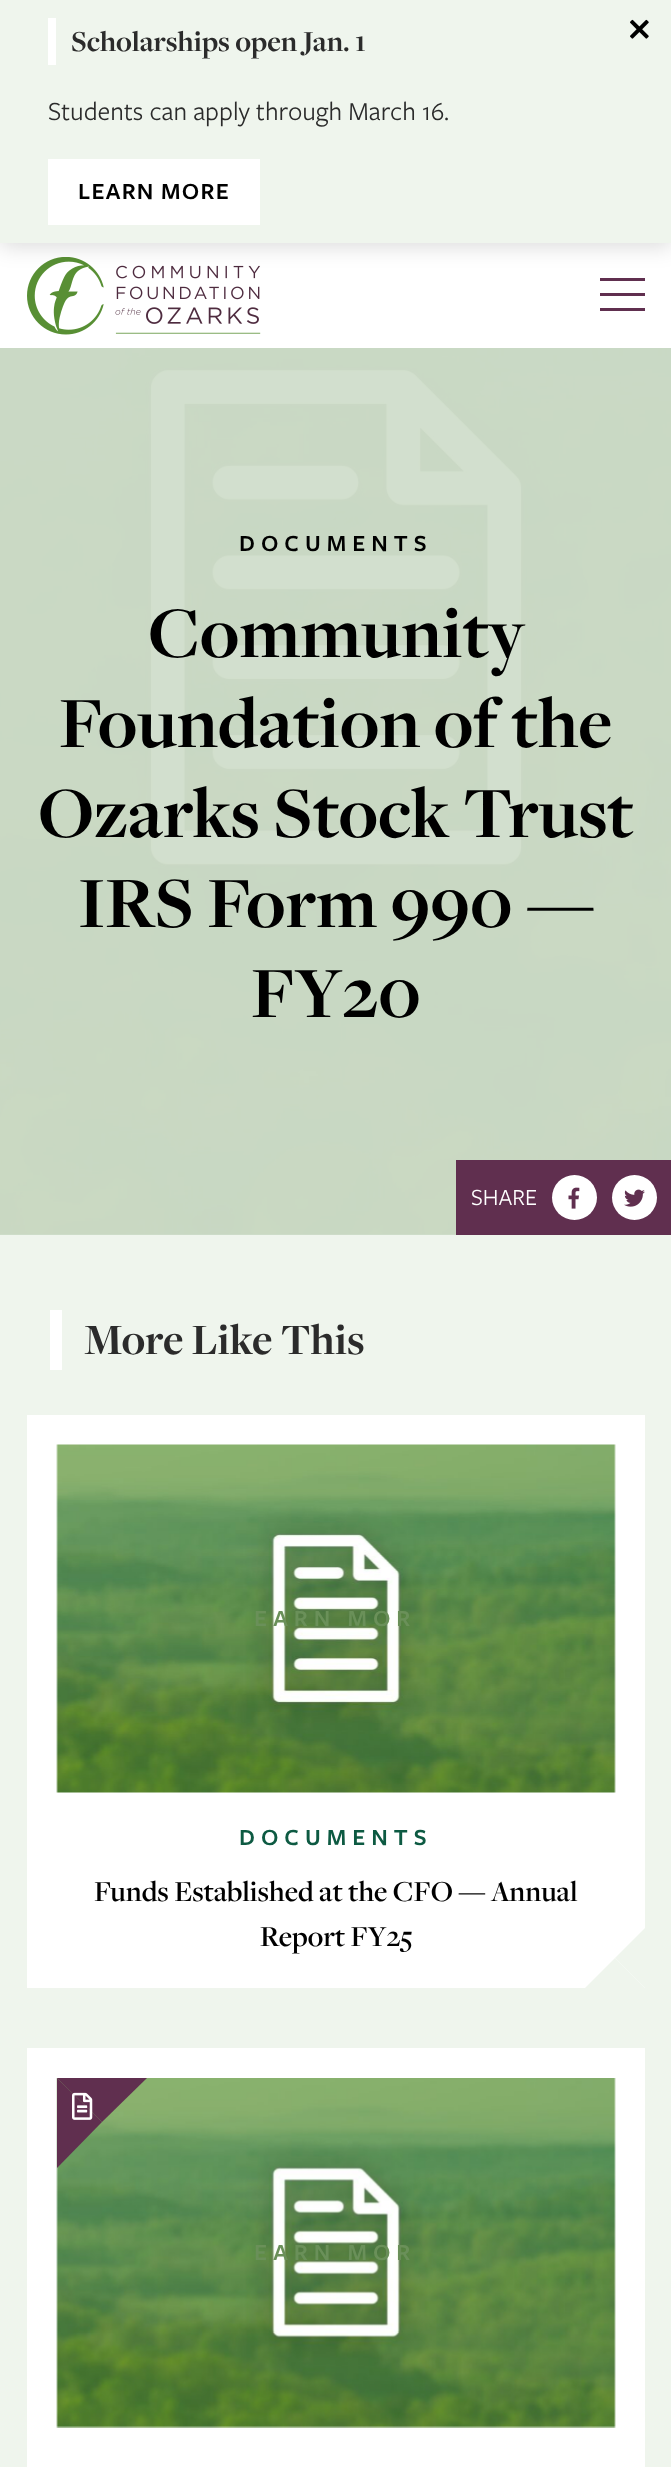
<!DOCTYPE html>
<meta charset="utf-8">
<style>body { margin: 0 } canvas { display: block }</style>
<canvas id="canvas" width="671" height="2467"></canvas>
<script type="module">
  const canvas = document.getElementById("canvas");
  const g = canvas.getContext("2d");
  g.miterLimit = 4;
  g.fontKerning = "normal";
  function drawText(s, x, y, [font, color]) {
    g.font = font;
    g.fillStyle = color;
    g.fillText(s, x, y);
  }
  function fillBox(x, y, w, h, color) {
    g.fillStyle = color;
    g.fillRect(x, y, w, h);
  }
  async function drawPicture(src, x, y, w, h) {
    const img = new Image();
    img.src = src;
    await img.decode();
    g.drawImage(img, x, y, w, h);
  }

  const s1 = ["bold 30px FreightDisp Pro", "#2B2B2B"];
  const s2 = ["27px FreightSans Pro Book", "#2B2B2B"];
  const s3 = ["600 24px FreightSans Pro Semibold", "#000000"];
  const s4 = ["bold 75px FreightDisp Pro", "#000000"];
  const s5 = ["24px FreightSans Pro Book", "#FFFFFF"];
  const s6 = ["bold 45px FreightDisp Pro", "#2B2B2B"];
  const s7 = ["600 24px FreightSans Pro Semibold", "#6A9059"];
  const s8 = ["600 24px FreightSans Pro Semibold", "#0D5A42"];
  const s9 = ["600 30px FreightDisp Pro", "#000000"];

  fillBox(0, 0, 671, 2467, "#D2DFCE");
  fillBox(0, 243, 671, 105, "#FFFFFF");
  await drawPicture("pic2.png", 27, 257, 234, 78);
  g.fillStyle = "rgba(0, 0, 0, 0.15)";
  g.filter = "blur(11px)";
  g.beginPath();
  g.rect(0, 3, 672, 243);
  g.fill();
  g.filter = "none";
  fillBox(0, 0, 671, 243, "#EFF5ED");
  fillBox(48, 18, 8, 47, "#FFFFFF");
  drawText("Scholarships open Jan. 1", 71, 51, s1);
  drawText("Students can apply through March 16.", 48, 120, s2);
  fillBox(48, 159, 212, 66, "#FFFFFF");
  g.letterSpacing = "1.25px";
  drawText("LEARN MORE", 78, 199, s3);
  await drawPicture("pic1.png", 630, 19, 19, 20);
  fillBox(600, 293, 45, 3, "#602F4F");
  fillBox(600, 278, 45, 3, "#602F4F");
  fillBox(600, 308, 45, 3, "#602F4F");
  await drawPicture("pic3.png", 0, 348, 671, 887);
  g.letterSpacing = "6px";
  drawText("DOCUMENTS", 239, 551, s3);
  g.letterSpacing = "0px";
  drawText("Community", 148, 657, s4);
  drawText("Foundation of the", 59, 747, s4);
  drawText("Ozarks Stock Trust", 38, 837, s4);
  drawText("IRS Form 990 —", 78, 927, s4);
  drawText("FY20", 251, 1017, s4);
  fillBox(456, 1160, 215, 75, "#602F4F");
  drawText("SHARE", 471, 1205, s5);
  g.beginPath();
  g.arc(574.5, 1197.5, 22.5, 0, Math.PI * 2);
  g.fill();
  await drawPicture("pic4.png", 568, 1187, 12, 22);
  g.beginPath();
  g.arc(634.5, 1197.5, 22.5, 0, Math.PI * 2);
  g.fill();
  await drawPicture("pic5.png", 624, 1189, 21, 18);
  fillBox(0, 1235, 671, 1232, "#EFF5ED");
  fillBox(50, 1310, 12, 60, "#FFFFFF");
  drawText("More Like This", 84, 1354, s6);
  fillBox(27, 1415, 618, 573, "#FFFFFF");
  await drawPicture("pic6.png", 56, 1444, 560, 349);
  g.letterSpacing = "6px";
  drawText("EARN MOR", 254, 1626, s7);
  drawText("DOCUMENTS", 239, 1845, s8);
  g.letterSpacing = "0px";
  drawText("Funds Established at the CFO — Annual", 94, 1901, s9);
  drawText("Report FY25", 260, 1946, s9);
  g.fillStyle = "#EFF5ED";
  g.beginPath();
  g.moveTo(645, 1928);
  g.lineTo(645, 1988);
  g.lineTo(615, 1958);
  g.closePath();
  g.fill();
  g.beginPath();
  g.moveTo(645, 1988);
  g.lineTo(585, 1988);
  g.lineTo(615, 1958);
  g.closePath();
  g.fill();
  fillBox(27, 2048, 618, 419, "#FFFFFF");
  await drawPicture("pic7.png", 56, 2078, 560, 350);
  g.fillStyle = "#602F4F";
  g.beginPath();
  g.moveTo(57, 2078);
  g.lineTo(147, 2078);
  g.lineTo(102, 2122);
  g.closePath();
  g.fill();
  g.beginPath();
  g.moveTo(57, 2168);
  g.lineTo(57, 2078);
  g.lineTo(102, 2122);
  g.closePath();
  g.fill();
  await drawPicture("pic8.png", 72, 2092, 21, 28);
  g.letterSpacing = "6px";
  drawText("EARN MOR", 254, 2260, s7);
</script>
